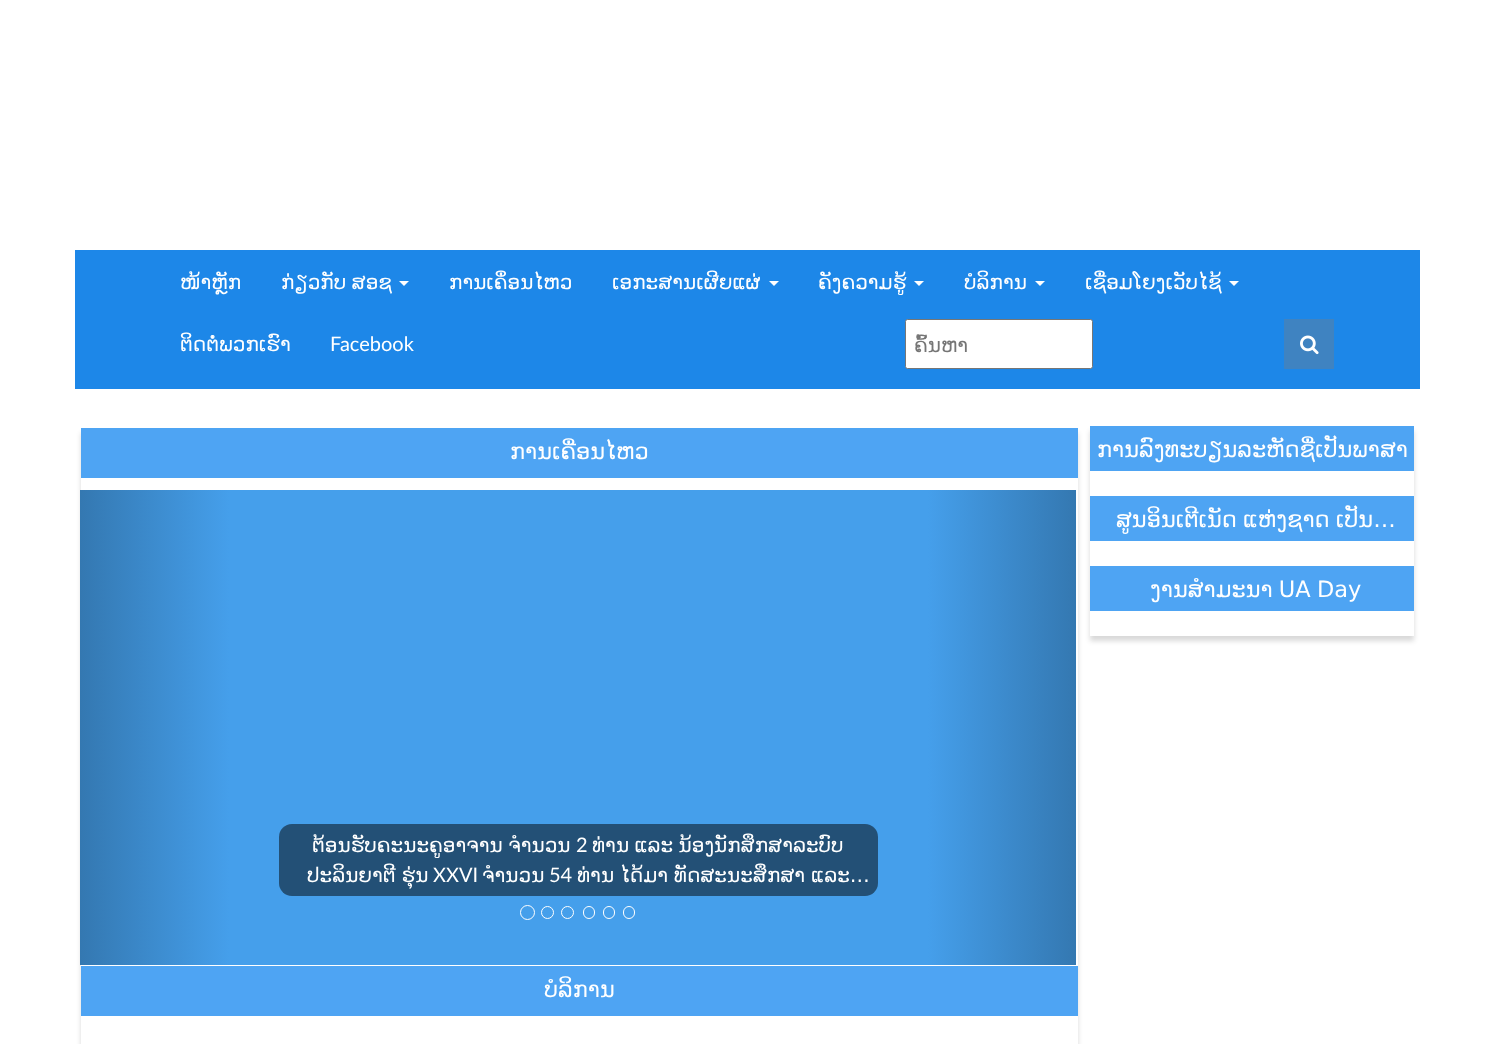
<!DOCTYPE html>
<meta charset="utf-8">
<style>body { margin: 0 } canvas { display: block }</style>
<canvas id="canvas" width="1494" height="1044"></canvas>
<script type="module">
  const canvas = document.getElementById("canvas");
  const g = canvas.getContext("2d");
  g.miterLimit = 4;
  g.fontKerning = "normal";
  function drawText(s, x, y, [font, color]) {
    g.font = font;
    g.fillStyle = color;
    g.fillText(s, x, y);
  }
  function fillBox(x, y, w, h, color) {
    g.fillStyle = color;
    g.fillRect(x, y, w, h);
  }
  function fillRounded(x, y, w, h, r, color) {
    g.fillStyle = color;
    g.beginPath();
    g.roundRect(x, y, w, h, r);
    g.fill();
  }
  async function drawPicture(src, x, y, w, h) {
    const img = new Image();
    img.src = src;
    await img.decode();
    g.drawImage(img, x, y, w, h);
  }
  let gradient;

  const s1 = ["20px DejaVu Sans", "#FFFFFF"];
  const s2 = ["20px Lato", "#FFFFFF"];
  const s3 = ["20px DejaVu Sans", "#757575"];
  const s4 = ["22.5px DejaVu Sans", "#FFFFFF"];

  fillBox(0, 0, 1494, 1044, "#FFFFFF");
  fillBox(75, 250, 1345, 139, "#1D87E8");
  drawText("ໜ້າຫຼັກ", 180, 289, s1);
  g.wordSpacing = "-1px";
  drawText("ກ່ຽວກັບ ສອຊ", 281, 289, s1);
  g.beginPath();
  g.moveTo(399, 281);
  g.lineTo(409, 281);
  g.lineTo(404, 286);
  g.closePath();
  g.fill();
  g.wordSpacing = "0px";
  drawText("ການເຄຶ່ອນໄຫວ", 449, 289, s1);
  drawText("ເອກະສານເຜີຍແຜ່", 612, 289, s1);
  g.beginPath();
  g.moveTo(769, 281);
  g.lineTo(779, 281);
  g.lineTo(774, 286);
  g.closePath();
  g.fill();
  drawText("ຄັງຄວາມຮູ້", 818, 289, s1);
  g.beginPath();
  g.moveTo(914, 281);
  g.lineTo(924, 281);
  g.lineTo(919, 286);
  g.closePath();
  g.fill();
  drawText("ບໍລິການ", 964, 289, s1);
  g.beginPath();
  g.moveTo(1035, 281);
  g.lineTo(1045, 281);
  g.lineTo(1040, 286);
  g.closePath();
  g.fill();
  drawText("ເຊື່ອມໂຍງເວັບໄຊ້", 1085, 289, s1);
  g.beginPath();
  g.moveTo(1229, 281);
  g.lineTo(1239, 281);
  g.lineTo(1234, 286);
  g.closePath();
  g.fill();
  drawText("ຕິດຕໍ່ພວກເຮົາ", 180, 351, s1);
  drawText("Facebook", 330, 351, s2);
  g.beginPath();
  g.roundRect(905.5, 319.5, 187, 49, 2);
  g.fill();
  g.strokeStyle = "#767676";
  g.stroke();
  g.save();
  g.beginPath();
  g.rect(914, 333, 164, 25);
  g.clip();
  drawText("ຄົ້ນຫາ", 914, 352, s3);
  g.restore();
  fillBox(1284, 319, 50, 50, "#3F83C1");
  await drawPicture("pic1.png", 1300, 335, 19, 20);
  g.fillStyle = "rgba(0, 0, 0, 0.15)";
  g.filter = "blur(2.5px)";
  g.beginPath();
  g.rect(81, 433, 997, 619);
  g.fill();
  g.filter = "none";
  fillBox(81, 478, 997, 566, "#FFFFFF");
  fillBox(81, 428, 997, 50, "#4EA4F3");
  drawText("ການເຄື່ອນໄຫວ", 510, 459, s4);
  gradient = g.createLinearGradient(80, 728, 229, 728);
  gradient.addColorStop(0, "#3478B1");
  gradient.addColorStop(1, "#459FEB");
  g.fillStyle = gradient;
  g.fillRect(80, 490, 149, 475);
  fillBox(229, 490, 699, 475, "#459FEB");
  fillRounded(279, 824, 599, 72, 13, "#235076");
  g.wordSpacing = "-1px";
  drawText("ຕ້ອນຮັບຄະນະຄູອາຈານ ຈຳນວນ", 312, 852, s1);
  g.wordSpacing = "0px";
  drawText("2", 576, 852, s2);
  g.wordSpacing = "-1px";
  drawText("ທ່ານ ແລະ ນ້ອງນັກສຶກສາລະບົບ", 592, 852, s1);
  g.wordSpacing = "-0.5px";
  drawText("ປະລິນຍາຕີ ຮຸ່ນ", 307, 882, s1);
  g.wordSpacing = "0px";
  drawText("XXVI", 433, 882, s2);
  drawText("ຈຳນວນ", 482, 882, s1);
  drawText("54", 549, 882, s2);
  g.wordSpacing = "-0.5px";
  drawText("ທ່ານ ໄດ້ມາ ທັດສະນະສຶກສາ ແລະ…", 577, 882, s1);
  gradient = g.createLinearGradient(928, 728, 1076, 728);
  gradient.addColorStop(0, "#459FEB");
  gradient.addColorStop(1, "#3478B1");
  g.fillStyle = gradient;
  g.fillRect(928, 490, 148, 475);
  g.beginPath();
  g.arc(527.5, 912.5, 7, 0, Math.PI * 2);
  g.strokeStyle = "#FFFFFF";
  g.stroke();
  g.beginPath();
  g.arc(547.5, 912.5, 6, 0, Math.PI * 2);
  g.stroke();
  g.beginPath();
  g.arc(567.5, 912.5, 6, 0, Math.PI * 2);
  g.stroke();
  g.beginPath();
  g.roundRect(583.5, 906.5, 11, 12, 5.5);
  g.stroke();
  g.beginPath();
  g.roundRect(603.5, 906.5, 11, 12, 5.5);
  g.stroke();
  g.beginPath();
  g.roundRect(623.5, 906.5, 11, 12, 5.5);
  g.stroke();
  fillBox(81, 966, 997, 50, "#4EA4F3");
  g.wordSpacing = "0px";
  drawText("ບໍລິການ", 544, 997, s4);
  g.fillStyle = "rgba(0, 0, 0, 0.15)";
  g.filter = "blur(2.5px)";
  g.beginPath();
  g.rect(1090, 431, 324, 70);
  g.fill();
  g.filter = "none";
  fillBox(1090, 471, 324, 25, "#FFFFFF");
  fillBox(1090, 426, 324, 45, "#4EA4F3");
  drawText("ການລົງທະບຽນລະຫັດຊື່ເປັນພາສາ", 1097, 457, s4);
  g.fillStyle = "rgba(0, 0, 0, 0.15)";
  g.filter = "blur(2.5px)";
  g.beginPath();
  g.rect(1090, 501, 324, 70);
  g.fill();
  g.filter = "none";
  fillBox(1090, 541, 324, 25, "#FFFFFF");
  fillBox(1090, 496, 324, 45, "#4EA4F3");
  g.wordSpacing = "-1px";
  drawText("ສູນອິນເຕີເນັດ ແຫ່ງຊາດ ເປັນ…", 1116, 527, s4);
  g.fillStyle = "rgba(0, 0, 0, 0.15)";
  g.filter = "blur(2.5px)";
  g.beginPath();
  g.rect(1090, 571, 324, 70);
  g.fill();
  g.filter = "none";
  fillBox(1090, 611, 324, 25, "#FFFFFF");
  fillBox(1090, 566, 324, 45, "#4EA4F3");
  drawText("ງານສຳມະນາ UA Day", 1150, 597, s4);
</script>
